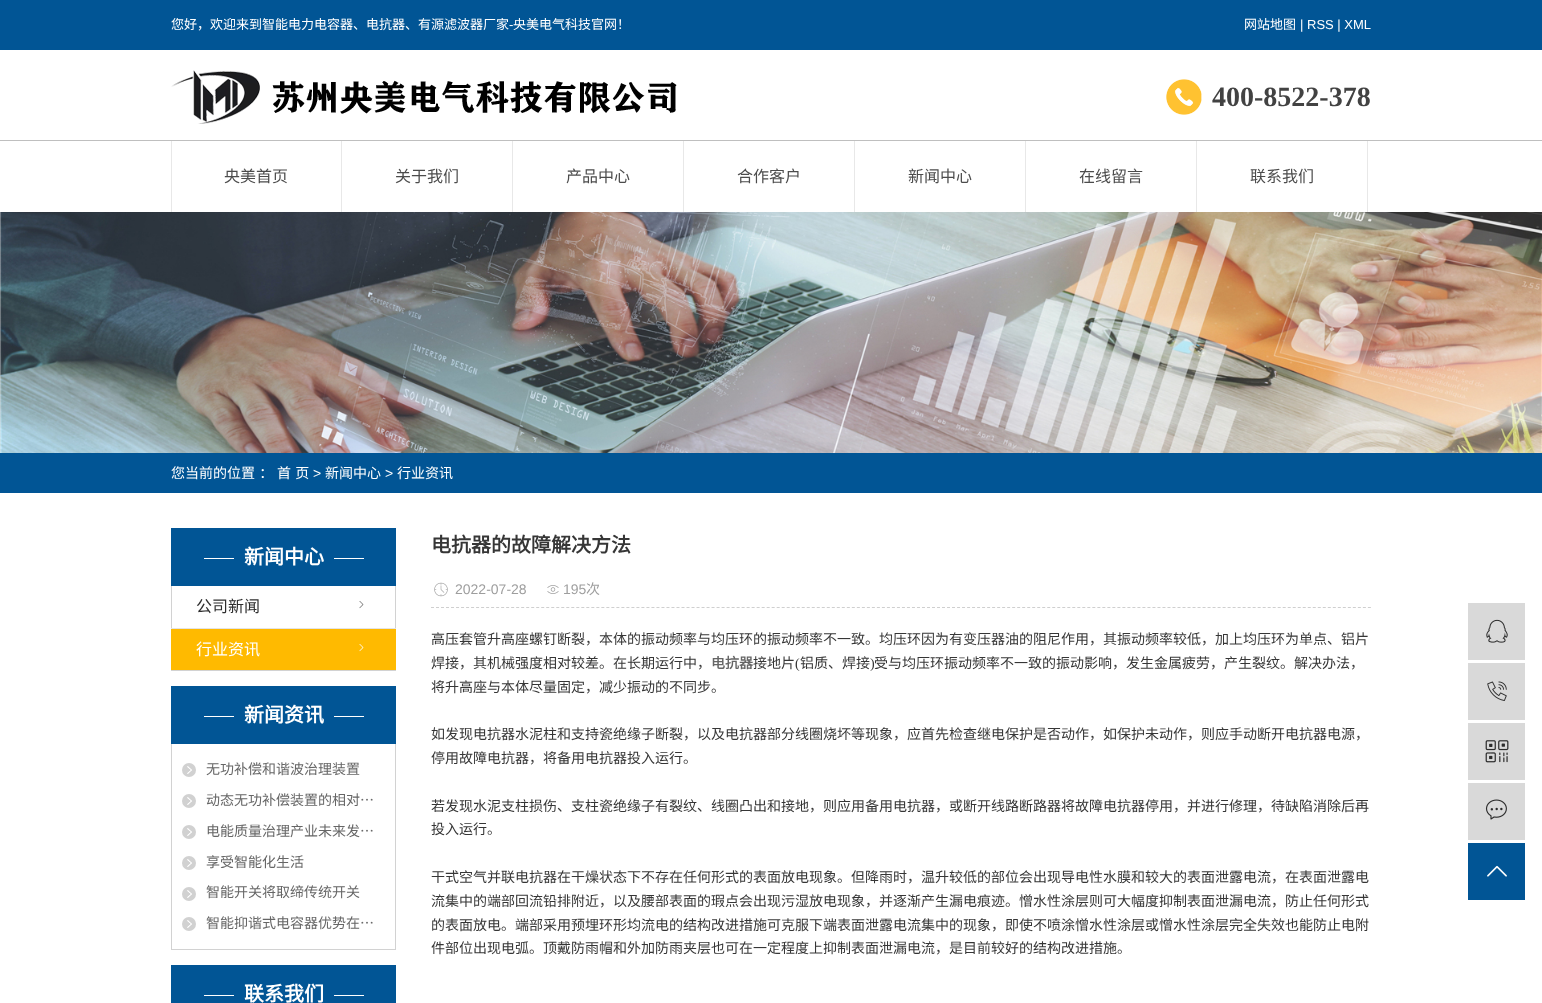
<!DOCTYPE html>
<meta charset="utf-8">
<style>body { margin: 0 } canvas { display: block }</style>
<canvas id="canvas" width="1542" height="1003"></canvas>
<script type="module">
  const canvas = document.getElementById("canvas");
  const g = canvas.getContext("2d");
  g.miterLimit = 4;
  g.fontKerning = "normal";
  function drawText(s, x, y, [font, color]) {
    g.font = font;
    g.fillStyle = color;
    g.fillText(s, x, y);
  }
  function fillBox(x, y, w, h, color) {
    g.fillStyle = color;
    g.fillRect(x, y, w, h);
  }
  async function drawPicture(src, x, y, w, h) {
    const img = new Image();
    img.src = src;
    await img.decode();
    g.drawImage(img, x, y, w, h);
  }

  const s1 = ["13px Noto Sans CJK SC", "#FFFFFF"];
  const s2 = ["13px Liberation Sans", "#FFFFFF"];
  const s3 = ["bold 28px Liberation Serif", "#424242"];
  const s4 = ["16px Noto Sans CJK SC", "#4C4C4C"];
  const s5 = ["14px Noto Sans CJK SC", "#FFFFFF"];
  const s6 = ["14px Liberation Sans", "#FFFFFF"];
  const s7 = ["bold 20px Noto Sans CJK SC", "#FFFFFF"];
  const s8 = ["16px Noto Sans CJK SC", "#2E2E2E"];
  const s9 = ["16px Noto Sans CJK SC", "#FFFFFF"];
  const s10 = ["14px Noto Sans CJK SC", "#666666"];
  const s11 = ["bold 20px Noto Sans CJK SC", "#363636"];
  const s12 = ["14px Liberation Sans", "#9E9E9E"];
  const s13 = ["14px Noto Sans CJK SC", "#9E9E9E"];
  const s14 = ["14px Noto Sans CJK SC", "#363636"];
  const s15 = ["bold 14px Noto Sans CJK SC", "#666666"];
  const s16 = ["14px Liberation Serif", "#363636"];

  fillBox(0, 0, 1542, 1003, "#FFFFFF");
  fillBox(0, 0, 1542, 50, "#015595");
  drawText("您好，欢迎来到智能电力电容器、电抗器、有源滤波器厂家", 171, 29, s1);
  drawText("-", 509, 29, s2);
  drawText("央美电气科技官网！", 513, 29, s1);
  drawText("网站地图", 1244, 29, s1);
  drawText("| RSS | XML", 1300, 29, s2);
  await drawPicture("pic1.png", 171, 70, 506, 54);
  await drawPicture("pic2.png", 1166, 79, 36, 36);
  drawText("400-8522-378", 1212, 106, s3);
  fillBox(0, 140, 1542, 1, "#BFBFBF");
  fillBox(341, 141, 1, 71, "#E8E8E8");
  fillBox(171, 141, 1, 71, "#E8E8E8");
  drawText("央美首页", 224, 182, s4);
  fillBox(512, 141, 1, 71, "#E8E8E8");
  drawText("关于我们", 395, 182, s4);
  fillBox(683, 141, 1, 71, "#E8E8E8");
  drawText("产品中心", 566, 182, s4);
  fillBox(854, 141, 1, 71, "#E8E8E8");
  drawText("合作客户", 737, 182, s4);
  fillBox(1025, 141, 1, 71, "#E8E8E8");
  drawText("新闻中心", 908, 182, s4);
  fillBox(1196, 141, 1, 71, "#E8E8E8");
  drawText("在线留言", 1079, 182, s4);
  fillBox(1367, 141, 1, 71, "#E8E8E8");
  drawText("联系我们", 1250, 182, s4);
  await drawPicture("pic3.png", 0, 212, 1542, 241);
  fillBox(0, 453, 1542, 40, "#015595");
  g.wordSpacing = "1px";
  drawText("您当前的位置 ：", 171, 478, s5);
  drawText("首 页", 277, 478, s5);
  g.wordSpacing = "0px";
  drawText(">", 313, 478, s6);
  drawText("新闻中心", 325, 478, s5);
  drawText(">", 385, 478, s6);
  drawText("行业资讯", 397, 478, s5);
  fillBox(171, 528, 225, 58, "#015595");
  fillBox(204, 558, 30, 1, "#FFFFFF");
  drawText("新闻中心", 244, 564, s7);
  fillBox(334, 558, 30, 1, "#FFFFFF");
  fillBox(395, 586, 1, 42, "#D2D2D2");
  fillBox(171, 670, 225, 1, "#D2D2D2");
  fillBox(171, 586, 1, 85, "#D2D2D2");
  drawText("公司新闻", 196, 612, s8);
  await drawPicture("pic4.png", 359, 601, 5, 8);
  fillBox(171, 628, 225, 1, "#E4E4E4");
  fillBox(171, 629, 225, 41, "#FFBA00");
  drawText("行业资讯", 196, 655, s9);
  await drawPicture("pic5.png", 359, 644, 5, 8);
  fillBox(171, 686, 225, 58, "#015595");
  fillBox(204, 716, 30, 1, "#FFFFFF");
  drawText("新闻资讯", 244, 722, s7);
  fillBox(334, 716, 30, 1, "#FFFFFF");
  fillBox(395, 744, 1, 206, "#D2D2D2");
  fillBox(171, 949, 225, 1, "#D2D2D2");
  fillBox(171, 744, 1, 206, "#D2D2D2");
  g.fillStyle = "#D1D1D1";
  g.beginPath();
  g.arc(189, 770, 7, 0, Math.PI * 2);
  g.fill();
  await drawPicture("pic6.png", 187, 766, 5, 8);
  drawText("无功补偿和谐波治理装置", 206, 774, s10);
  g.fillStyle = "#D1D1D1";
  g.beginPath();
  g.arc(189, 801, 7, 0, Math.PI * 2);
  g.fill();
  await drawPicture("pic6.png", 187, 797, 5, 8);
  drawText("动态无功补偿装置的相对…", 206, 805, s10);
  g.fillStyle = "#D1D1D1";
  g.beginPath();
  g.arc(189, 832, 7, 0, Math.PI * 2);
  g.fill();
  await drawPicture("pic6.png", 187, 828, 5, 8);
  drawText("电能质量治理产业未来发…", 206, 836, s10);
  g.fillStyle = "#D1D1D1";
  g.beginPath();
  g.arc(189, 863, 7, 0, Math.PI * 2);
  g.fill();
  await drawPicture("pic6.png", 187, 859, 5, 8);
  drawText("享受智能化生活", 206, 867, s10);
  g.fillStyle = "#D1D1D1";
  g.beginPath();
  g.arc(189, 894, 7, 0, Math.PI * 2);
  g.fill();
  await drawPicture("pic6.png", 187, 890, 5, 8);
  drawText("智能开关将取缔传统开关", 206, 897, s10);
  g.fillStyle = "#D1D1D1";
  g.beginPath();
  g.arc(189, 924, 7, 0, Math.PI * 2);
  g.fill();
  await drawPicture("pic6.png", 187, 920, 5, 8);
  drawText("智能抑谐式电容器优势在…", 206, 928, s10);
  fillBox(171, 965, 225, 38, "#015595");
  fillBox(204, 995, 30, 1, "#FFFFFF");
  drawText("联系我们", 244, 1001, s7);
  fillBox(334, 995, 30, 1, "#FFFFFF");
  drawText("电抗器的故障解决方法", 431, 552, s11);
  g.beginPath();
  g.moveTo(431, 607.5);
  g.lineTo(1371, 607.5);
  g.strokeStyle = "#CFCFCF";
  g.setLineDash([3, 2.01]);
  g.stroke();
  await drawPicture("pic7.png", 434, 582, 14, 15);
  drawText("2022-07-28", 455, 594, s12);
  await drawPicture("pic8.png", 547, 585, 12, 9);
  drawText("195", 563, 594, s12);
  drawText("次", 586, 594, s13);
  drawText("高压套管升高座螺钉断裂，本体的振动频率与均压环的振动频率不一致。均压环因为有变压器油的阻尼作用，其振动频率较低，加上均压环为单点、铝片", 431, 644, s14);
  drawText("焊接，其机械强度相对较差。在长期运行中，", 431, 668, s14);
  drawText("电抗器", 711, 668, s15);
  drawText("接地片", 753, 668, s14);
  drawText("(", 795, 668, s16);
  drawText("铝质、焊接", 800, 668, s14);
  drawText(")", 870, 668, s16);
  drawText("受与均压环振动频率不一致的振动影响，发生金属疲劳，产生裂纹。解决办法，", 874, 668, s14);
  drawText("将升高座与本体尽量固定，减少振动的不同步。", 431, 692, s14);
  drawText("如发现电抗器水泥柱和支持瓷绝缘子断裂，以及电抗器部分线圈烧坏等现象，应首先检查继电保护是否动作，如保护未动作，则应手动断开电抗器电源，", 431, 739, s14);
  drawText("停用故障电抗器，将备用电抗器投入运行。", 431, 763, s14);
  drawText("若发现水泥支柱损伤、支柱瓷绝缘子有裂纹、线圈凸出和接地，则应用备用电抗器，或断开线路断路器将故障电抗器停用，并进行修理，待缺陷消除后再", 431, 811, s14);
  drawText("投入运行。", 431, 834, s14);
  drawText("干式空气并联电抗器在干燥状态下不存在任何形式的表面放电现象。但降雨时，温升较低的部位会出现导电性水膜和较大的表面泄露电流，在表面泄露电", 431, 882, s14);
  drawText("流集中的端部回流铅排附近，以及腰部表面的瑕点会出现污湿放电现象，并逐渐产生漏电痕迹。憎水性涂层则可大幅度抑制表面泄漏电流，防止任何形式", 431, 906, s14);
  drawText("的表面放电。端部采用预埋环形均流电的结构改进措施可克服下端表面泄露电流集中的现象，即使不喷涂憎水性涂层或憎水性涂层完全失效也能防止电附", 431, 930, s14);
  drawText("件部位出现电弧。顶戴防雨帽和外加防雨夹层也可在一定程度上抑制表面泄漏电流，是目前较好的结构改进措施。", 431, 953, s14);
  fillBox(1468, 603, 57, 57, "#D9D9D9");
  await drawPicture("pic9.png", 1486, 619, 22, 24);
  fillBox(1468, 663, 57, 57, "#D9D9D9");
  await drawPicture("pic10.png", 1487, 681, 20, 20);
  fillBox(1468, 723, 57, 57, "#D9D9D9");
  await drawPicture("pic11.png", 1485, 740, 24, 23);
  fillBox(1468, 783, 57, 57, "#D9D9D9");
  await drawPicture("pic12.png", 1485, 799, 22, 21);
  fillBox(1468, 843, 57, 57, "#015595");
  await drawPicture("pic13.png", 1487, 865, 20, 12);
</script>
